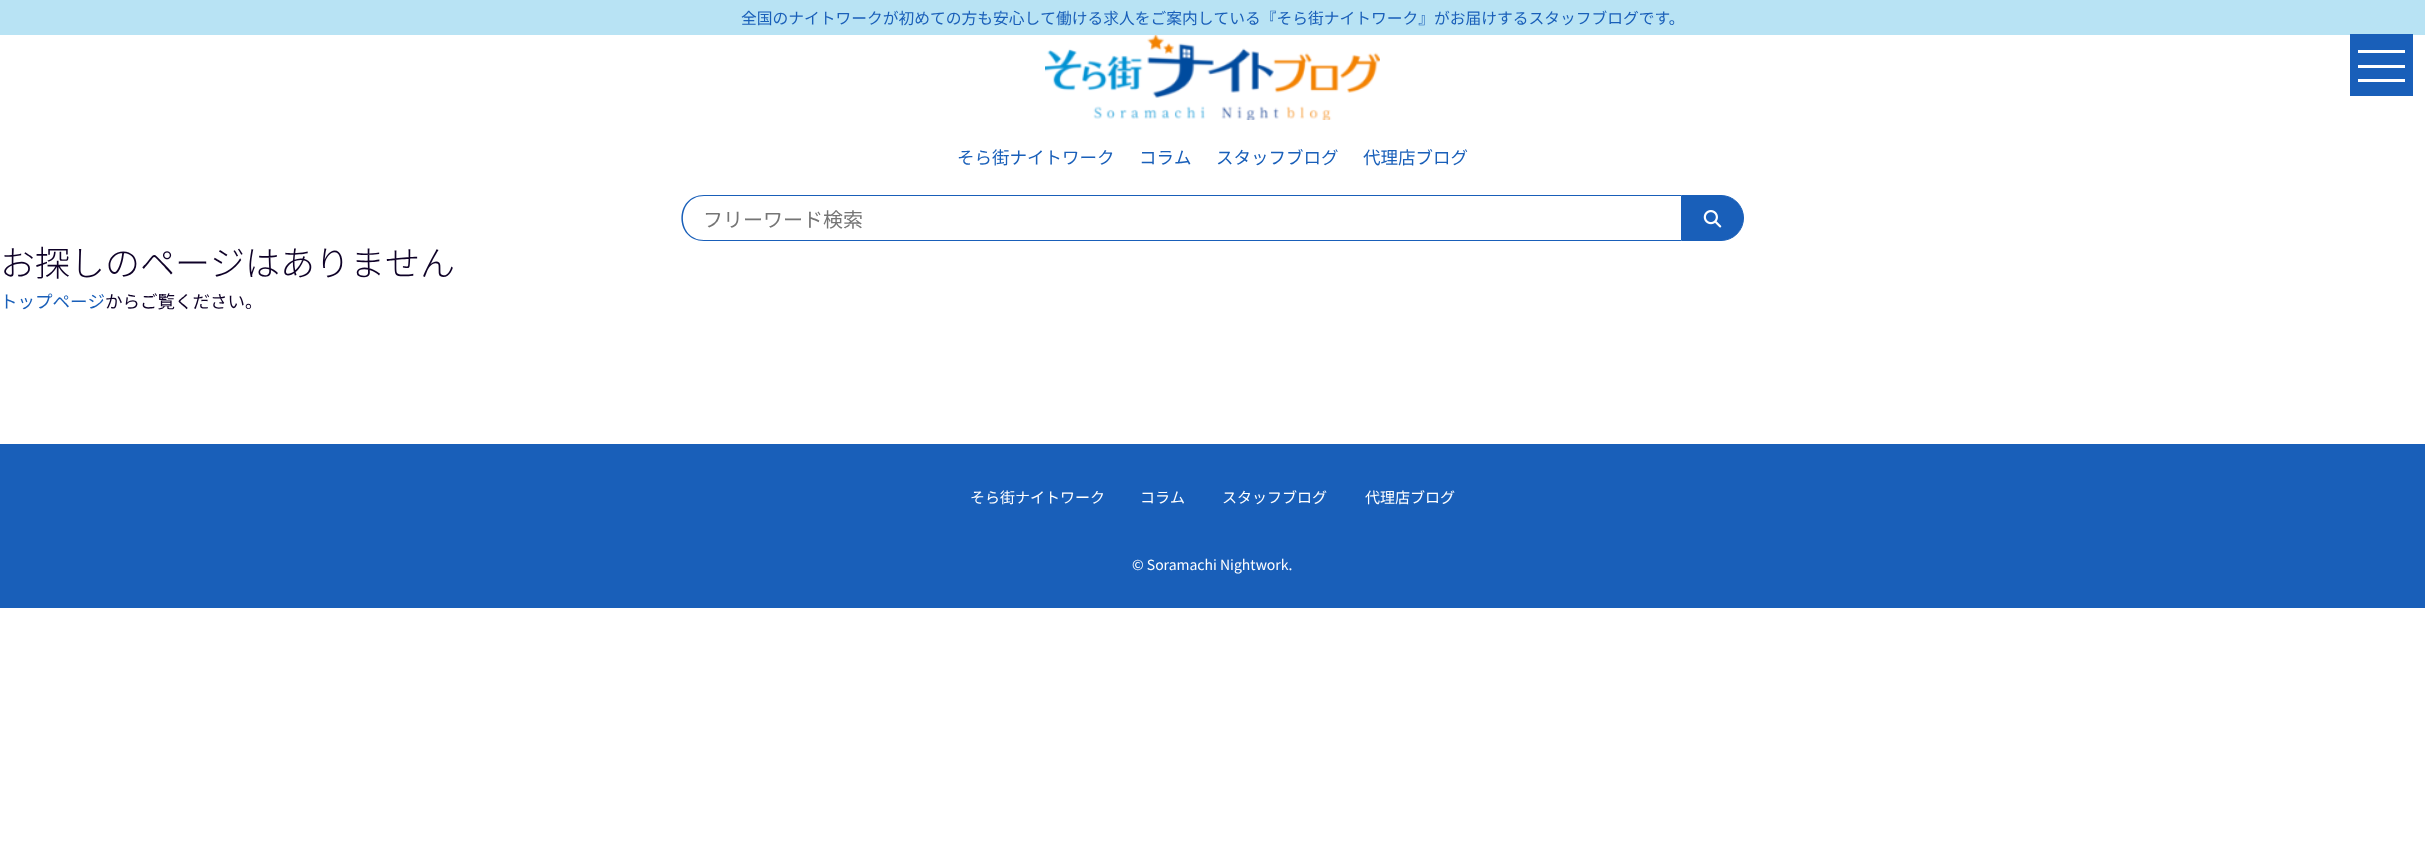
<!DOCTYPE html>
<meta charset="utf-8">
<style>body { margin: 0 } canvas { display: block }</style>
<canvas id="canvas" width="2425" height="846"></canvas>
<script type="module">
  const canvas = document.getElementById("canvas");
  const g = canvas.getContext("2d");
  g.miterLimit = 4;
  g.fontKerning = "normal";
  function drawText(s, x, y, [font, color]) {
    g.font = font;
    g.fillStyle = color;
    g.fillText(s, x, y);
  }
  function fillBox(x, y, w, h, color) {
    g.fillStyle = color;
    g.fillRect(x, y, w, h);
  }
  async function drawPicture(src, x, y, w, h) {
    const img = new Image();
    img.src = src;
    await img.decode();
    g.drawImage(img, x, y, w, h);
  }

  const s1 = ["15.75px Noto Sans JP", "#195FB9"];
  const s2 = ["17.5px Noto Sans JP", "#195FB9"];
  const s3 = ["20px Noto Sans JP", "#757575"];
  const s4 = ["300 35px Noto Sans JP", "#0E0127"];
  const s5 = ["17.5px Noto Sans JP", "#0E0127"];
  const s6 = ["15px Noto Sans JP", "#FFFFFF"];
  const s7 = ["14px Noto Sans JP", "#FFFFFF"];

  fillBox(0, 0, 2425, 846, "#FFFFFF");
  fillBox(0, 0, 2425, 35, "#B8E3F4");
  drawText("全国のナイトワークが初めての方も安心して働ける求人をご案内している『そら街ナイトワーク』がお届けするスタッフブログです。", 741, 24, s1);
  await drawPicture("pic1.png", 1045, 35, 335, 85);
  drawText("そら街ナイトワーク", 957, 164, s2);
  drawText("コラム", 1139, 164, s2);
  drawText("スタッフブログ", 1216, 164, s2);
  drawText("代理店ブログ", 1363, 164, s2);
  g.beginPath();
  g.moveTo(704, 195);
  g.lineTo(1681, 195);
  g.lineTo(1681, 241);
  g.lineTo(704, 241);
  g.bezierCurveTo(674, 241, 674, 195, 704, 195);
  g.closePath();
  g.moveTo(704, 196);
  g.lineTo(1681, 196);
  g.lineTo(1681, 240);
  g.lineTo(704, 240);
  g.bezierCurveTo(676, 240, 676, 196, 704, 196);
  g.closePath();
  g.fill("evenodd");
  drawText("フリーワード検索", 703, 227, s3);
  g.fillStyle = "#195FB9";
  g.beginPath();
  g.roundRect(1681.5, 195.5, 62, 45, [0, 22.5, 22.5, 0]);
  g.fill();
  g.strokeStyle = "#195FB9";
  g.stroke();
  await drawPicture("pic2.png", 1703, 210, 19, 18);
  fillBox(2350, 34, 63, 62, "#195FB9");
  fillBox(2358, 50, 47, 3, "#FFFFFF");
  fillBox(2358, 65, 47, 3, "#FFFFFF");
  fillBox(2358, 79, 47, 3, "#FFFFFF");
  drawText("お探しのページはありません", 0, 276, s4);
  drawText("トップページ", 0, 308, s2);
  drawText("からご覧ください。", 105, 308, s5);
  fillBox(0, 444, 2425, 164, "#195FB9");
  drawText("そら街ナイトワーク", 970, 503, s6);
  drawText("コラム", 1140, 503, s6);
  drawText("スタッフブログ", 1222, 503, s6);
  drawText("代理店ブログ", 1365, 503, s6);
  drawText("© Soramachi Nightwork.", 1132, 570, s7);
</script>
